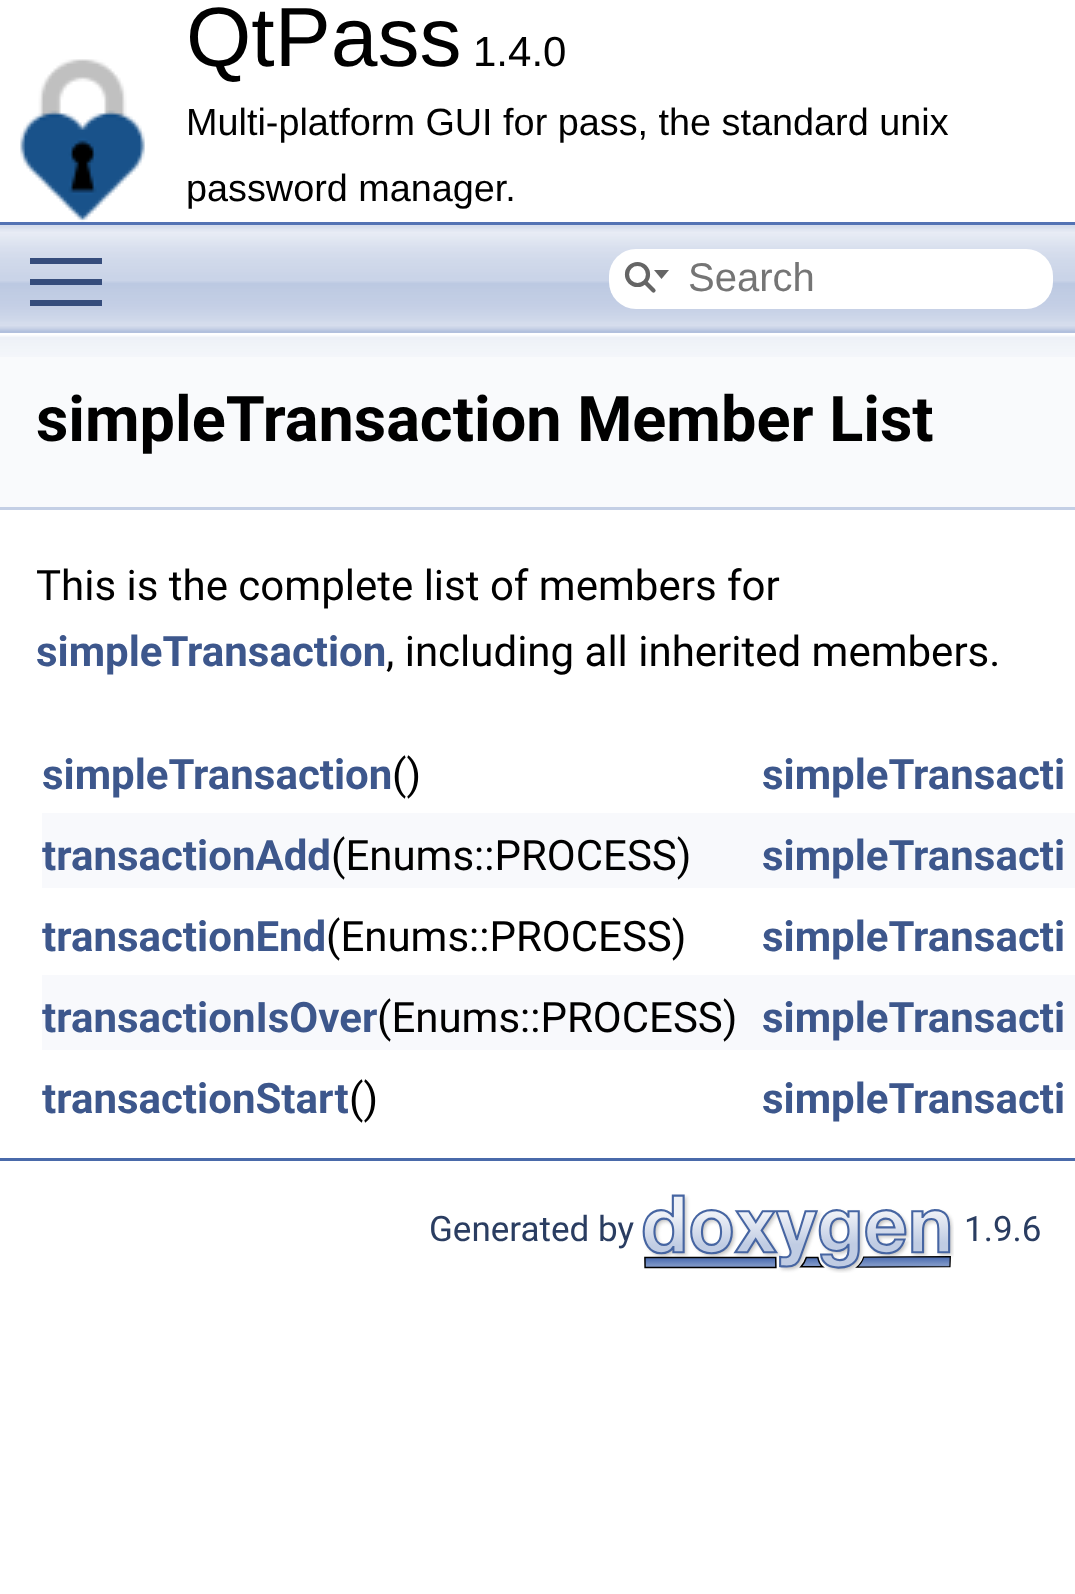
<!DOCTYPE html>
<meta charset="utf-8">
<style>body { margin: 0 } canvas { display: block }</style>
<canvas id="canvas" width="1075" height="1594"></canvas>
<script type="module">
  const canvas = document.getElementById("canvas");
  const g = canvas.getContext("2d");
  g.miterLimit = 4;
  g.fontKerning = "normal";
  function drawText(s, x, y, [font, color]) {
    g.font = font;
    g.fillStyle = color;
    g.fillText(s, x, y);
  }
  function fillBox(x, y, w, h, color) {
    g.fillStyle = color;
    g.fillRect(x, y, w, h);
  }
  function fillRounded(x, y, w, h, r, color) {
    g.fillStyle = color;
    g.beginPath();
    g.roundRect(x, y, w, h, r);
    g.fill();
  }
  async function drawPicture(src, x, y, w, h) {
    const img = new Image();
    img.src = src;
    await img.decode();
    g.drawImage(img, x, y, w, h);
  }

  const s1 = ["84px Liberation Sans", "#000000"];
  const s2 = ["42px Liberation Sans", "#000000"];
  const s3 = ["37.8px Liberation Sans", "#000000"];
  const s4 = ["40px Liberation Sans", "#757575"];
  const s5 = ["bold 63px Roboto", "#000000"];
  const s6 = ["42px Roboto", "#000000"];
  const s7 = ["bold 42px Roboto", "#3D578C"];
  const s8 = ["35px Roboto", "#2A3D61"];

  fillBox(0, 0, 1075, 1594, "#FFFFFF");
  fillBox(0, 222, 1075, 3, "#5373B4");
  await drawPicture("pic1.png", 20, 59, 125, 163);
  drawText("QtPass", 186, 66, s1);
  drawText("1.4.0", 473, 66, s2);
  drawText("Multi-platform GUI for pass, the standard unix", 186, 135, s3);
  drawText("password manager.", 186, 201, s3);
  await drawPicture("pic2.png", 0, 225, 1075, 108);
  fillBox(30, 279, 72, 6, "#364D7C");
  fillBox(30, 258, 72, 6, "#364D7C");
  fillBox(30, 300, 72, 6, "#364D7C");
  fillRounded(609, 249, 444, 60, 27, "#FFFFFF");
  g.beginPath();
  g.arc(637.5, 274.5, 10.5, 0, Math.PI * 2);
  g.strokeStyle = "#656565";
  g.lineWidth = 4.2;
  g.stroke();
  g.fillStyle = "#656565";
  g.beginPath();
  g.moveTo(654, 270);
  g.lineTo(661.5, 279);
  g.lineTo(669, 270);
  g.closePath();
  g.fill();
  g.beginPath();
  g.moveTo(645.5, 282.5);
  g.lineTo(653.5, 290.5);
  g.lineCap = "round";
  g.stroke();
  drawText("Search", 688, 291, s4);
  fillBox(0, 357, 1075, 150, "#F9FAFC");
  await drawPicture("pic3.png", 0, 333, 1075, 24);
  fillBox(0, 507, 1075, 3, "#C4CFE5");
  drawText("simpleTransaction Member List", 36, 441, s5);
  drawText("This is the complete list of members for", 36, 600, s6);
  drawText("simpleTransaction", 36, 666, s7);
  drawText(", including all inherited members.", 386, 666, s6);
  drawText("simpleTransaction", 42, 789, s7);
  drawText("()", 392, 789, s6);
  drawText("simpleTransacti", 762, 789, s7);
  fillBox(42, 813, 1033, 75, "#F8F9FC");
  drawText("transactionAdd", 42, 870, s7);
  drawText("(Enums::PROCESS)", 331, 870, s6);
  drawText("simpleTransacti", 762, 870, s7);
  drawText("transactionEnd", 42, 951, s7);
  drawText("(Enums::PROCESS)", 326, 951, s6);
  drawText("simpleTransacti", 762, 951, s7);
  fillBox(42, 975, 1033, 75, "#F8F9FC");
  drawText("transactionIsOver", 42, 1032, s7);
  drawText("(Enums::PROCESS)", 377, 1032, s6);
  drawText("simpleTransacti", 762, 1032, s7);
  drawText("transactionStart", 42, 1113, s7);
  drawText("()", 349, 1113, s6);
  drawText("simpleTransacti", 762, 1113, s7);
  fillBox(0, 1158, 1075, 3, "#4A6AAA");
  drawText("Generated by", 429, 1241, s8);
  await drawPicture("pic4.png", 642, 1194, 312, 79);
  drawText("1.9.6", 964, 1241, s8);
</script>
